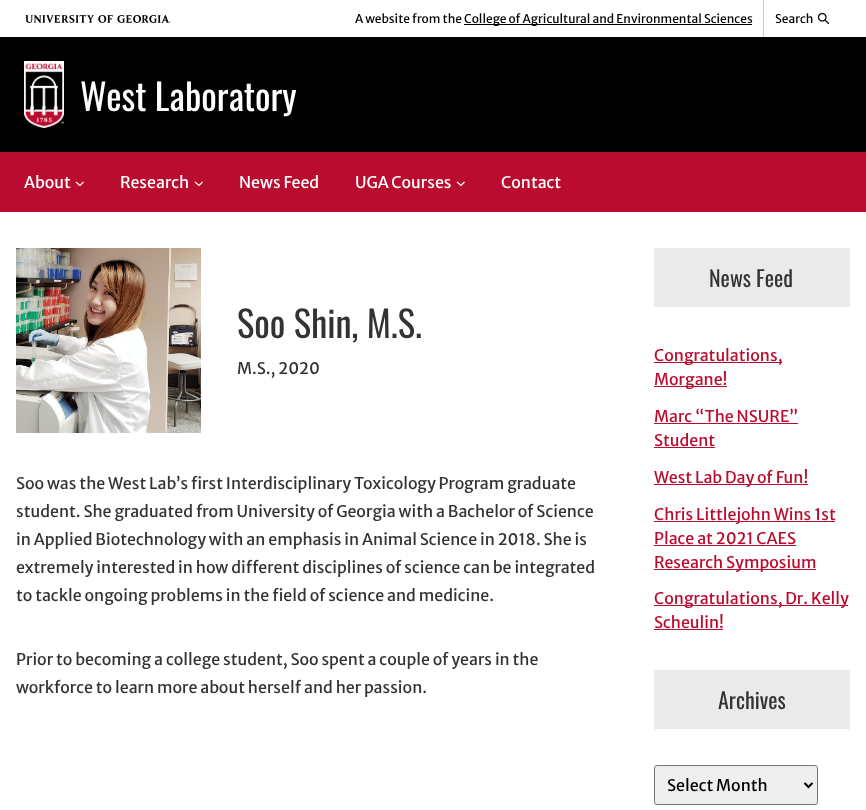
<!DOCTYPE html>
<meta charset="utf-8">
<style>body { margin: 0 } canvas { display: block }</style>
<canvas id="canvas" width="866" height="810"></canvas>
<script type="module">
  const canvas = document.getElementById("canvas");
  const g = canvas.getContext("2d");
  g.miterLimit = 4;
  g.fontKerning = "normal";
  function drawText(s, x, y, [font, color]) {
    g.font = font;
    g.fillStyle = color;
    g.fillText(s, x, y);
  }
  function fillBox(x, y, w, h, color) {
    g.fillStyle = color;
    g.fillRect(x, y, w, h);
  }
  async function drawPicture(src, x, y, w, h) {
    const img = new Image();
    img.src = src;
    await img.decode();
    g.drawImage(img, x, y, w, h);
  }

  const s1 = ["12px Merriweather Sans", "#000000"];
  const s2 = ["36.5px Oswald", "#FFFFFF"];
  const s3 = ["16px Merriweather Sans", "#FFFFFF"];
  const s4 = ["36.5px Oswald", "#333333"];
  const s5 = ["16px Merriweather Sans", "#333333"];
  const s6 = ["22px Oswald", "#333333"];
  const s7 = ["16px Merriweather Sans", "#BA0C2F"];
  const s8 = ["16px Merriweather Sans", "#000000"];

  fillBox(0, 0, 866, 810, "#FFFFFF");
  await drawPicture("pic1.png", 25, 15, 146, 8);
  fillBox(763, 0, 1, 37, "#CCCCCC");
  drawText("A website from the", 355, 23, s1);
  fillBox(464, 24, 288, 1, "#000000");
  drawText("College of Agricultural and Environmental Sciences", 464, 23, s1);
  drawText("Search", 775, 23, s1);
  await drawPicture("pic2.png", 817, 12, 13, 13);
  fillBox(0, 37, 866, 115, "#000000");
  await drawPicture("pic3.png", 24, 61, 40, 67);
  drawText("West Laboratory", 80, 111, s2);
  fillBox(0, 152, 866, 60, "#BA0C2F");
  drawText("About", 24, 188, s3);
  g.beginPath();
  g.moveTo(76, 182);
  g.lineTo(80, 185.5);
  g.lineTo(83.5, 182);
  g.strokeStyle = "#FFFFFF";
  g.lineWidth = 1.2;
  g.stroke();
  drawText("Research", 120, 188, s3);
  g.beginPath();
  g.moveTo(195, 182);
  g.lineTo(199, 185.5);
  g.lineTo(202.5, 182);
  g.stroke();
  drawText("News Feed", 239, 188, s3);
  drawText("UGA Courses", 355, 188, s3);
  g.beginPath();
  g.moveTo(457, 182);
  g.lineTo(461, 185.5);
  g.lineTo(464.5, 182);
  g.stroke();
  drawText("Contact", 501, 188, s3);
  await drawPicture("pic4.png", 16, 248, 185, 185);
  drawText("Soo Shin, M.S.", 237, 338, s4);
  drawText("M.S., 2020", 237, 374, s5);
  drawText("Soo was the West Lab’s first Interdisciplinary Toxicology Program graduate", 16, 489, s5);
  drawText("student. She graduated from University of Georgia with a Bachelor of Science", 16, 517, s5);
  drawText("in Applied Biotechnology with an emphasis in Animal Science in 2018. She is", 16, 545, s5);
  drawText("extremely interested in how different disciplines of science can be integrated", 16, 573, s5);
  drawText("to tackle ongoing problems in the field of science and medicine.", 16, 601, s5);
  drawText("Prior to becoming a college student, Soo spent a couple of years in the", 16, 665, s5);
  drawText("workforce to learn more about herself and her passion.", 16, 693, s5);
  fillBox(654, 248, 196, 59, "#EAEAEA");
  drawText("News Feed", 709, 287, s6);
  fillBox(654, 362, 128, 1, "#BA0C2F");
  drawText("Congratulations,", 654, 361, s7);
  fillBox(654, 386, 73, 1, "#BA0C2F");
  drawText("Morgane!", 654, 385, s7);
  drawText("Marc “The NSURE”", 654, 422, s7);
  fillBox(654, 423, 144, 1, "#BA0C2F");
  drawText("Student", 654, 446, s7);
  fillBox(654, 447, 61, 1, "#BA0C2F");
  fillBox(654, 484, 154, 1, "#BA0C2F");
  drawText("West Lab Day of Fun!", 654, 483, s7);
  fillBox(654, 521, 181, 1, "#BA0C2F");
  drawText("Chris Littlejohn Wins 1st", 654, 520, s7);
  drawText("Place at 2021 CAES", 654, 544, s7);
  fillBox(654, 545, 142, 1, "#BA0C2F");
  fillBox(654, 569, 162, 1, "#BA0C2F");
  drawText("Research Symposium", 654, 568, s7);
  fillBox(654, 605, 194, 1, "#BA0C2F");
  drawText("Congratulations, Dr. Kelly", 654, 604, s7);
  drawText("Scheulin!", 654, 628, s7);
  fillBox(654, 629, 69, 1, "#BA0C2F");
  fillBox(654, 670, 196, 59, "#EAEAEA");
  drawText("Archives", 718, 709, s6);
  g.fillStyle = "#EFEFEF";
  g.beginPath();
  g.roundRect(654.5, 765.5, 163, 39, 2.5);
  g.fill();
  g.strokeStyle = "#767676";
  g.lineWidth = 1;
  g.stroke();
  g.beginPath();
  g.moveTo(804.5, 783);
  g.lineTo(808.5, 787);
  g.lineTo(812.5, 783);
  g.strokeStyle = "#000000";
  g.lineWidth = 2;
  g.stroke();
  drawText("Select Month", 667, 791, s8);
</script>
